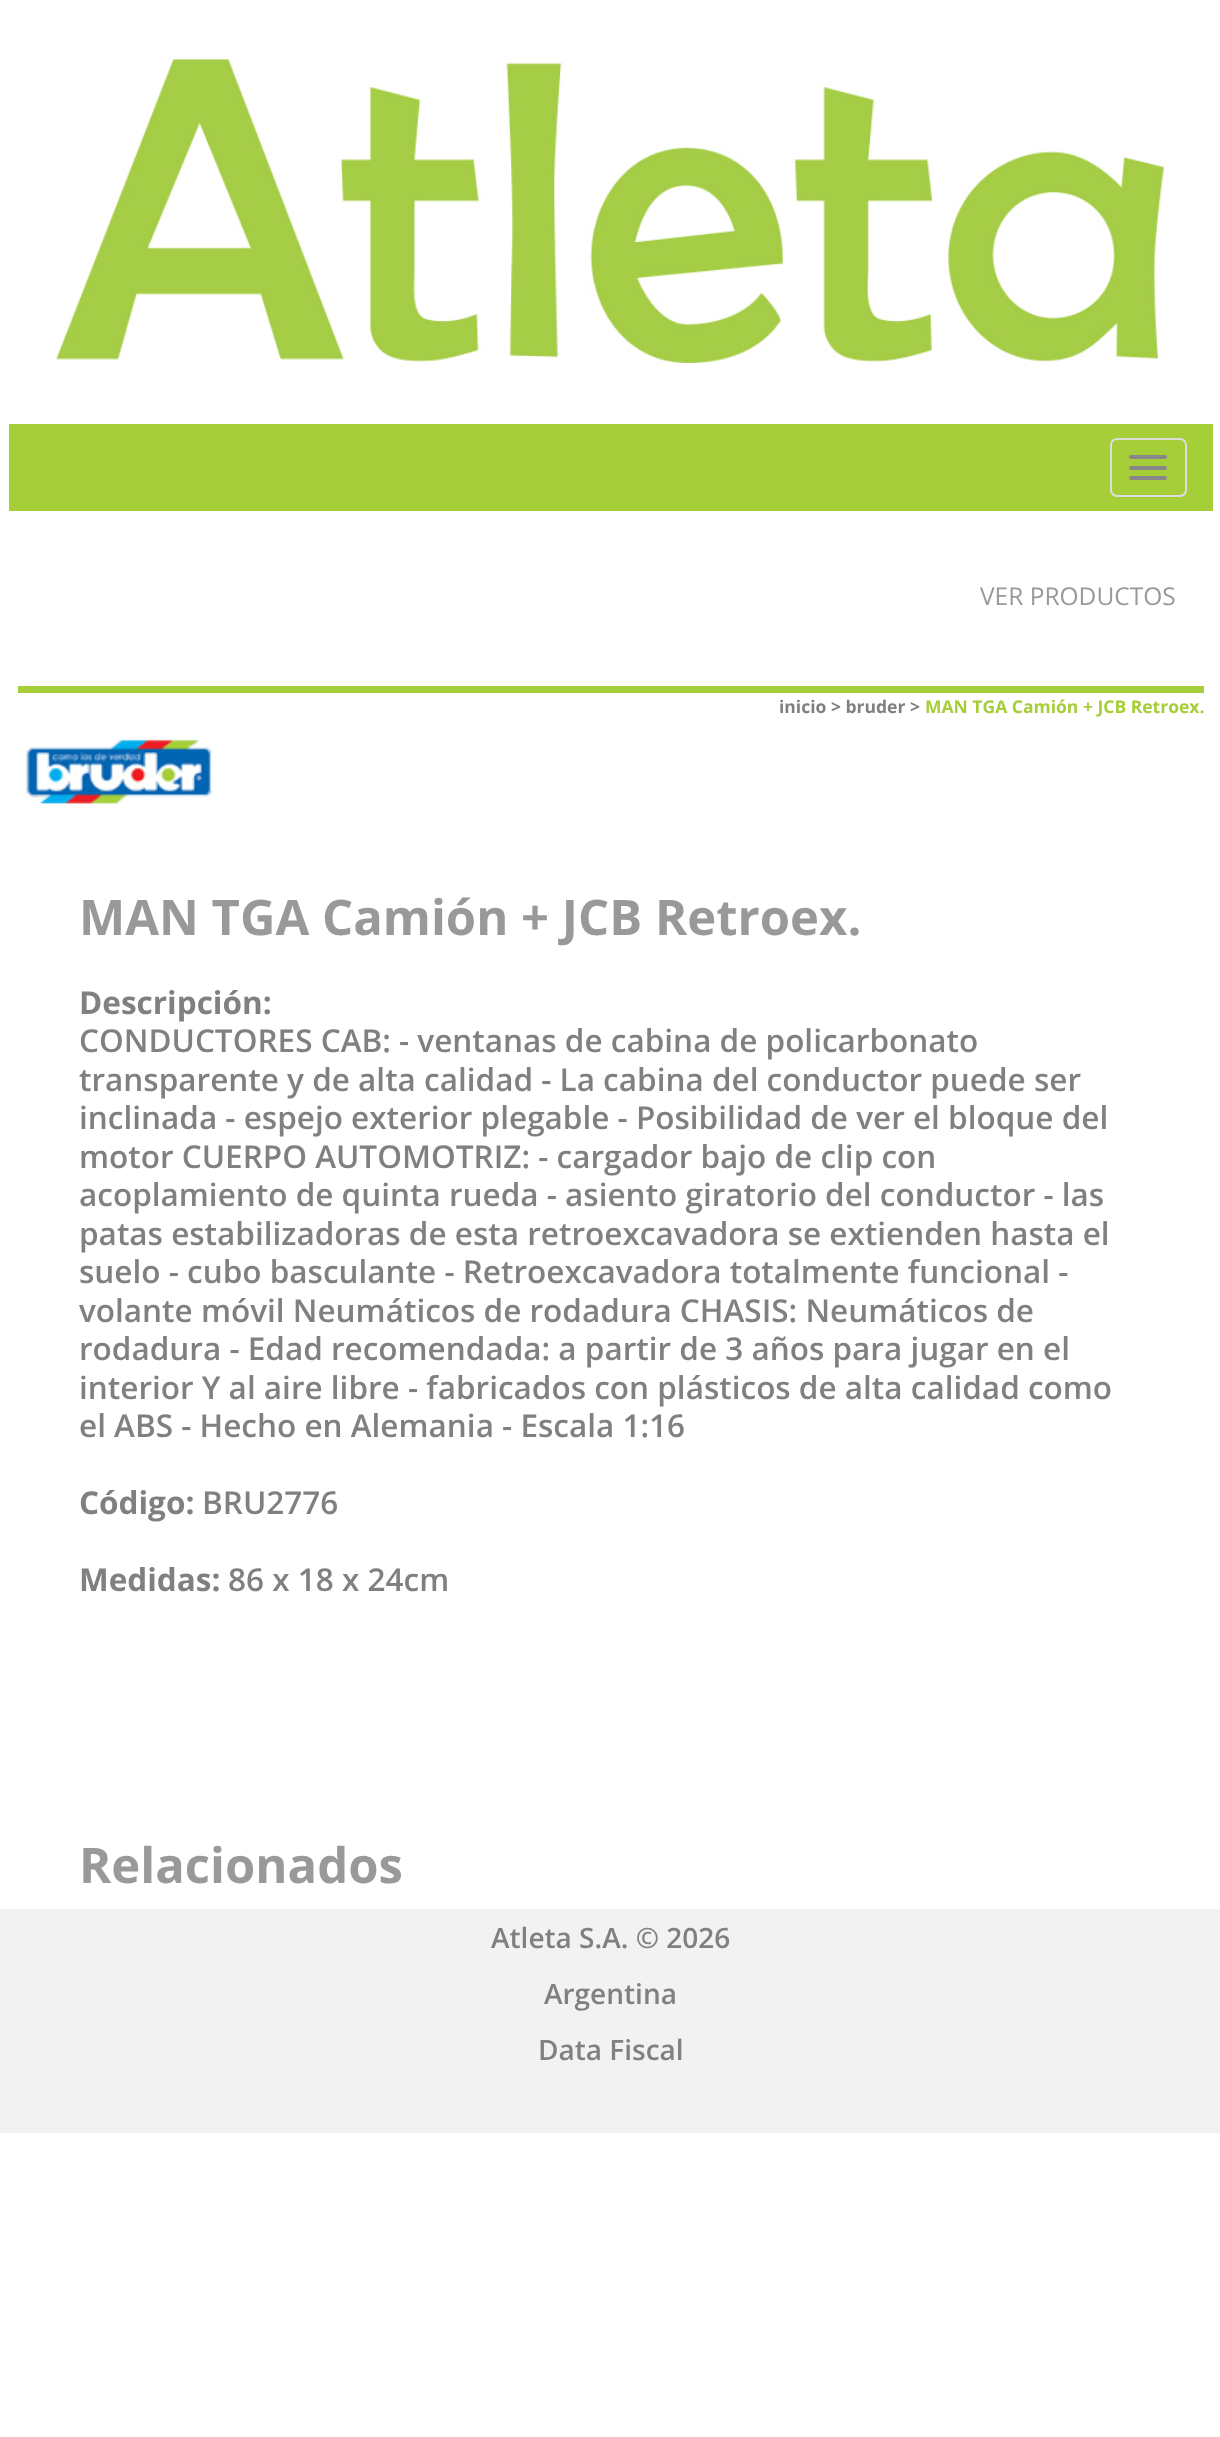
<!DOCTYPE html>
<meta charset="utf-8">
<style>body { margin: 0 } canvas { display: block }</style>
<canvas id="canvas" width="1220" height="2437"></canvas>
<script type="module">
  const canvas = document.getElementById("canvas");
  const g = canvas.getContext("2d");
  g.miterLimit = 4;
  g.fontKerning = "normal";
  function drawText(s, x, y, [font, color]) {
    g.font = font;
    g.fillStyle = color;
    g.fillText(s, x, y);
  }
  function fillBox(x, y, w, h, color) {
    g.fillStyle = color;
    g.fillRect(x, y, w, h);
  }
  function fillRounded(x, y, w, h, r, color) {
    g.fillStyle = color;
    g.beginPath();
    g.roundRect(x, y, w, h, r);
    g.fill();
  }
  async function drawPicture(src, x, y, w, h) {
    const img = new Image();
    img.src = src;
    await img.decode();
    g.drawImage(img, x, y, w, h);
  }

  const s1 = ["24.5px Open Sans", "#999999"];
  const s2 = ["bold 17.5px Open Sans", "#808080"];
  const s3 = ["bold 17.5px Open Sans", "#A6CE39"];
  const s4 = ["bold 49px Open Sans", "#999999"];
  const s5 = ["bold 31.5px Open Sans", "#808080"];
  const s6 = ["600 31.5px Open Sans", "#808080"];
  const s7 = ["600 28px Open Sans", "#808080"];

  fillBox(0, 0, 1220, 2437, "#FFFFFF");
  await drawPicture("pic1.png", 56, 59, 1108, 304);
  fillBox(9, 424, 1204, 87, "#A6CE39");
  g.beginPath();
  g.roundRect(1111, 439, 75, 57, 6);
  g.strokeStyle = "#DDDDDD";
  g.lineWidth = 2;
  g.stroke();
  fillRounded(1129, 455, 38, 4, 2, "#888888");
  fillRounded(1129, 466, 38, 4, 2, "#888888");
  fillRounded(1129, 476, 38, 4, 2, "#888888");
  drawText("VER PRODUCTOS", 980, 605, s1);
  fillBox(18, 686, 1186, 7, "#A6CE39");
  drawText("inicio > bruder >", 779, 713, s2);
  drawText("MAN TGA Camión + JCB Retroex.", 925, 713, s3);
  await drawPicture("pic2.png", 25, 739, 188, 71);
  drawText("MAN TGA Camión + JCB Retroex.", 79, 935, s4);
  drawText("Descripción:", 79, 1014, s5);
  drawText("CONDUCTORES CAB: - ventanas de cabina de policarbonato", 79, 1052, s6);
  drawText("transparente y de alta calidad - La cabina del conductor puede ser", 79, 1091, s6);
  drawText("inclinada - espejo exterior plegable - Posibilidad de ver el bloque del", 79, 1129, s6);
  drawText("motor CUERPO AUTOMOTRIZ: - cargador bajo de clip con", 79, 1168, s6);
  drawText("acoplamiento de quinta rueda - asiento giratorio del conductor - las", 79, 1206, s6);
  drawText("patas estabilizadoras de esta retroexcavadora se extienden hasta el", 79, 1245, s6);
  drawText("suelo - cubo basculante - Retroexcavadora totalmente funcional -", 79, 1283, s6);
  drawText("volante móvil Neumáticos de rodadura CHASIS: Neumáticos de", 79, 1322, s6);
  drawText("rodadura - Edad recomendada: a partir de 3 años para jugar en el", 79, 1360, s6);
  drawText("interior Y al aire libre - fabricados con plásticos de alta calidad como", 79, 1399, s6);
  drawText("el ABS - Hecho en Alemania - Escala 1:16", 79, 1437, s6);
  drawText("Código:", 79, 1514, s5);
  drawText("BRU2776", 202, 1514, s6);
  drawText("Medidas:", 79, 1591, s5);
  drawText("86 x 18 x 24cm", 228, 1591, s6);
  drawText("Relacionados", 79, 1883, s4);
  fillBox(0, 1909, 1220, 224, "#F2F2F2");
  drawText("Atleta S.A. © 2026", 491, 1948, s7);
  drawText("Argentina", 544, 2004, s7);
  drawText("Data Fiscal", 538, 2060, s7);
</script>
